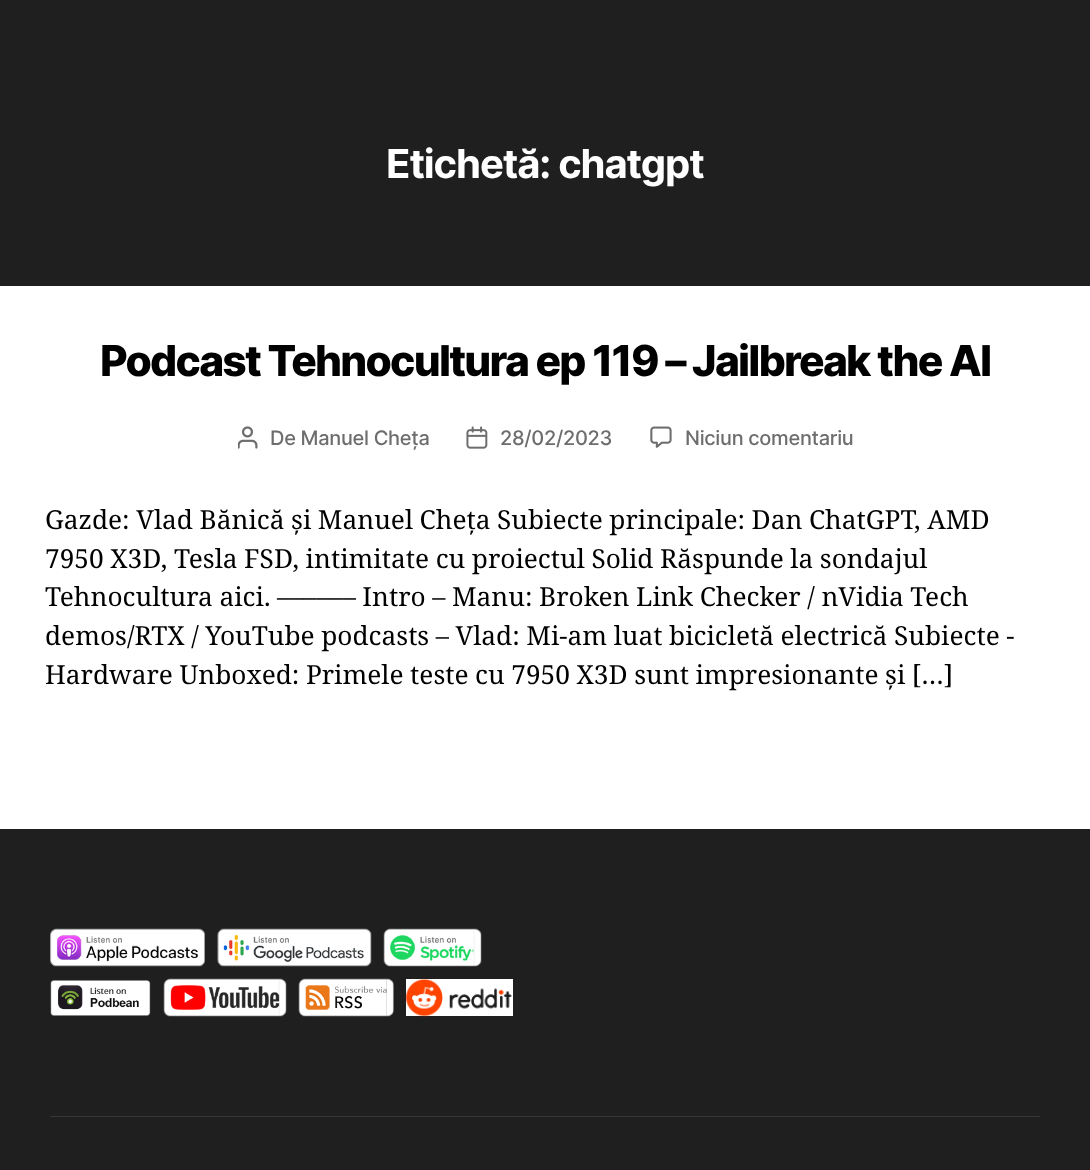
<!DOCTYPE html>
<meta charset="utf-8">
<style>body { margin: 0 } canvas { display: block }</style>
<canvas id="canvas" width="1090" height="1170"></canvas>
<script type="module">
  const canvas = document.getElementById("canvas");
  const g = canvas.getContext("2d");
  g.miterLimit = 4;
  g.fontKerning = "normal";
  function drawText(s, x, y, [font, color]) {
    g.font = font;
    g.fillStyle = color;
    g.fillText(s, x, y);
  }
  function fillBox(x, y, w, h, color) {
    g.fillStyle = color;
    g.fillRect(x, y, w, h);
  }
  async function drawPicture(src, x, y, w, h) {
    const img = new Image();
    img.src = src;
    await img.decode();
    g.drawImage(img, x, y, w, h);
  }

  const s1 = ["bold 40px Inter", "#FFFFFF"];
  const s2 = ["800 42.5px Inter", "#000000"];
  const s3 = ["500 20px Inter", "#6D6D6D"];
  const s4 = ["26.25px Noto Serif", "#000000"];

  fillBox(0, 0, 1090, 1170, "#FFFFFF");
  fillBox(0, 0, 1090, 286, "#1F1F1F");
  g.letterSpacing = "-1.1px";
  drawText("Etichetă: chatgpt", 386, 178, s1);
  g.letterSpacing = "-1.75px";
  drawText("Podcast Tehnocultura ep 119 – Jailbreak the AI", 100, 376, s2);
  await drawPicture("pic1.png", 238, 426, 20, 23);
  g.letterSpacing = "-0.3px";
  drawText("De Manuel Cheța", 270, 445, s3);
  await drawPicture("pic2.png", 466, 426, 22, 23);
  drawText("28/02/2023", 500, 445, s3);
  await drawPicture("pic3.png", 650, 426, 22, 22);
  drawText("Niciun comentariu", 685, 445, s3);
  g.letterSpacing = "0px";
  g.wordSpacing = "-0.25px";
  drawText("Gazde: Vlad Bănică și Manuel Cheța Subiecte principale: Dan ChatGPT, AMD", 45, 529, s4);
  drawText("7950 X3D, Tesla FSD, intimitate cu proiectul Solid Răspunde la sondajul", 45, 568, s4);
  drawText("Tehnocultura aici. –––––– Intro – Manu: Broken Link Checker / nVidia Tech", 45, 606, s4);
  drawText("demos/RTX / YouTube podcasts – Vlad: Mi-am luat bicicletă electrică Subiecte -", 45, 645, s4);
  drawText("Hardware Unboxed: Primele teste cu 7950 X3D sunt impresionante și […]", 45, 684, s4);
  fillBox(0, 829, 1090, 341, "#1F1F1F");
  fillBox(50, 1116, 990, 1, "#383838");
  await drawPicture("pic4.png", 50, 928, 155, 39);
  await drawPicture("pic5.png", 217, 928, 155, 39);
  await drawPicture("pic6.png", 383, 928, 99, 39);
  await drawPicture("pic7.png", 50, 980, 101, 36);
  await drawPicture("pic8.png", 163, 978, 124, 39);
  await drawPicture("pic9.png", 298, 978, 96, 39);
  fillBox(406, 979, 107, 37, "#FFFFFF");
  await drawPicture("pic10.png", 406, 978, 106, 39);
</script>
